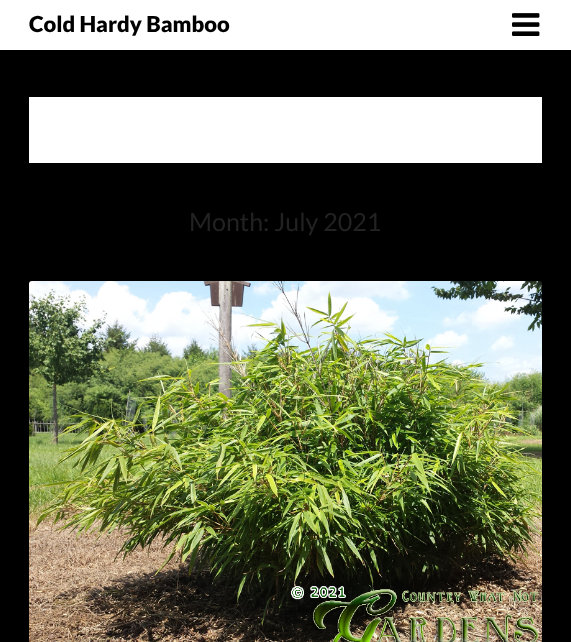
<!DOCTYPE html>
<meta charset="utf-8">
<style>body { margin: 0 } canvas { display: block }</style>
<canvas id="canvas" width="571" height="642"></canvas>
<script type="module">
  const canvas = document.getElementById("canvas");
  const g = canvas.getContext("2d");
  g.miterLimit = 4;
  g.fontKerning = "normal";
  function drawText(s, x, y, [font, color]) {
    g.font = font;
    g.fillStyle = color;
    g.fillText(s, x, y);
  }
  function fillBox(x, y, w, h, color) {
    g.fillStyle = color;
    g.fillRect(x, y, w, h);
  }
  async function drawPicture(src, x, y, w, h) {
    const img = new Image();
    img.src = src;
    await img.decode();
    g.drawImage(img, x, y, w, h);
  }

  const s1 = ["900 22px Lato", "#000000"];
  const s2 = ["25px Lato", "#222222"];

  fillBox(0, 0, 571, 642, "#000000");
  fillBox(0, 0, 571, 50, "#FFFFFF");
  drawText("Cold Hardy Bamboo", 29, 32, s1);
  await drawPicture("pic1.png", 512, 13, 28, 23);
  fillBox(29, 97, 513, 66, "#FFFFFF");
  drawText("Month: July 2021", 189, 231, s2);
  await drawPicture("pic2.png", 29, 281, 513, 361);
</script>
